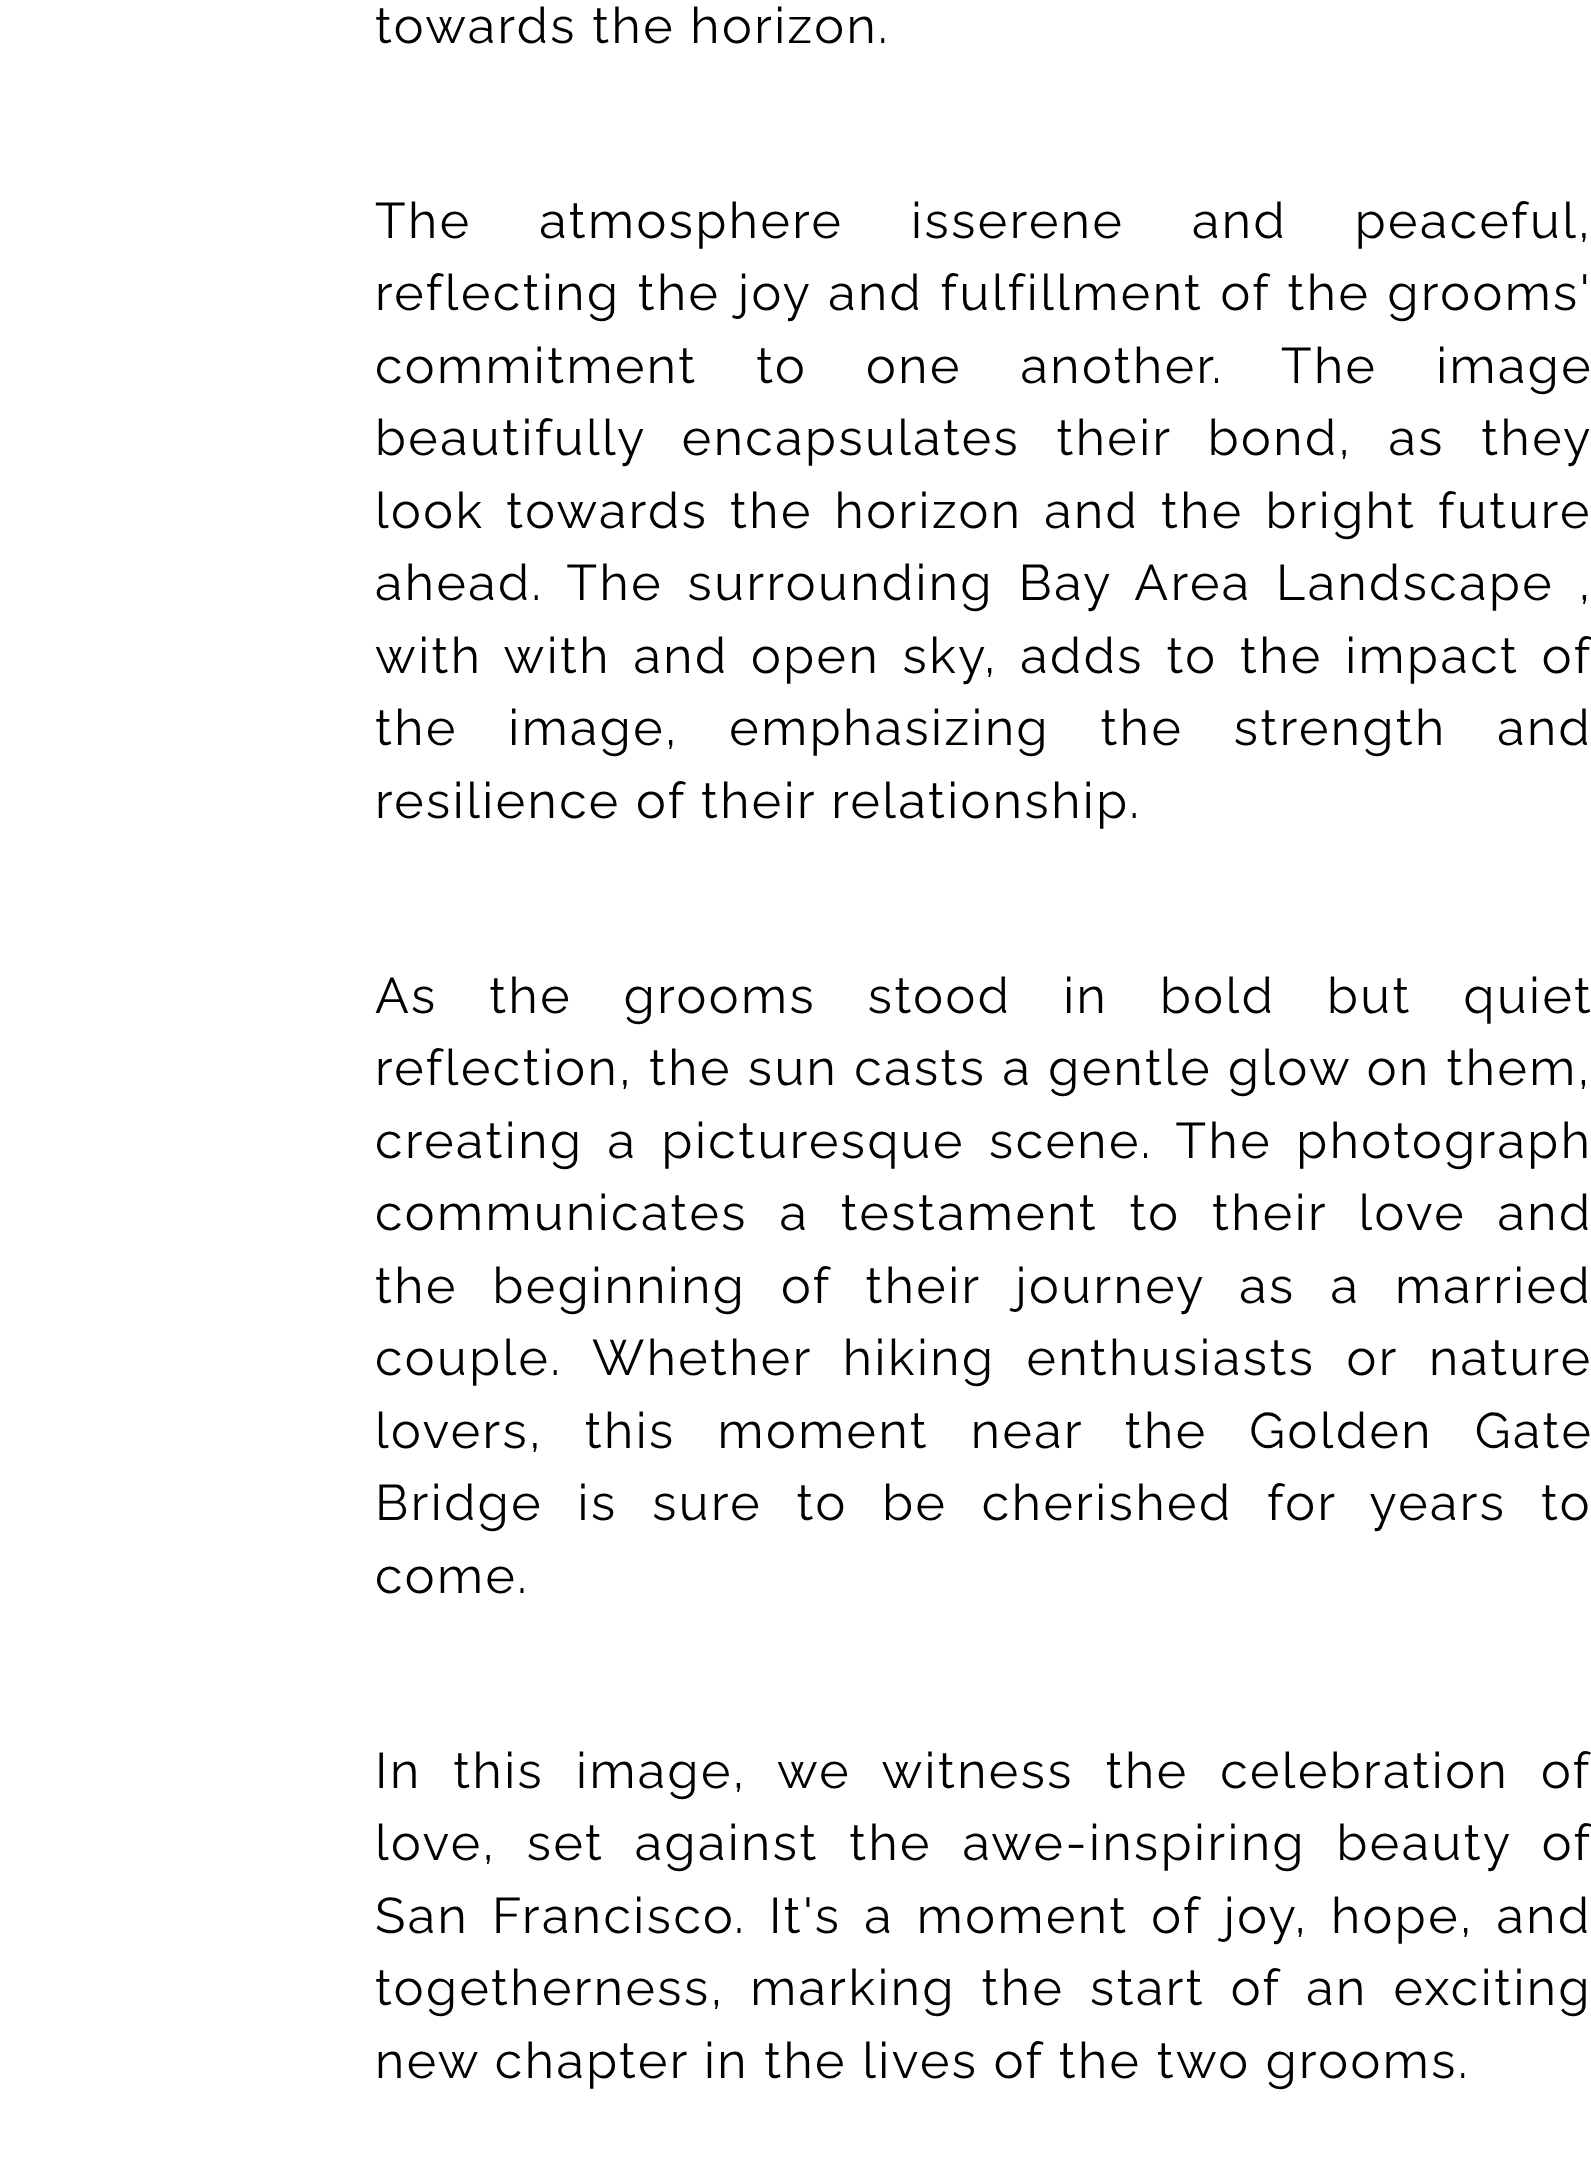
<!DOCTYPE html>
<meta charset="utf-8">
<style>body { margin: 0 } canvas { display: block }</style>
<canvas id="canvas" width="1591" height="2163"></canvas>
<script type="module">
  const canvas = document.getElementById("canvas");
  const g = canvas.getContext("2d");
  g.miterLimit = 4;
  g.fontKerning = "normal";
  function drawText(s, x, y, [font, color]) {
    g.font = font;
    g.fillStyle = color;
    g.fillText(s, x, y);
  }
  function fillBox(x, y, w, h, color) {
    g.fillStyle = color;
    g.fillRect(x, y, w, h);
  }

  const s1 = ["100 50px Raleway", "#000000"];

  fillBox(0, 0, 1591, 2163, "#FFFFFF");
  g.letterSpacing = "2.5px";
  drawText("towards the horizon.", 375, 43, s1);
  g.wordSpacing = "52.5px";
  drawText("The atmosphere isserene and peaceful,", 375, 238, s1);
  g.wordSpacing = "2px";
  drawText("reflecting the joy and fulfillment of the grooms'", 375, 310, s1);
  g.wordSpacing = "43.5px";
  drawText("commitment to one another. The image", 375, 383, s1);
  g.wordSpacing = "21px";
  drawText("beautifully encapsulates their bond, as they", 375, 455, s1);
  g.wordSpacing = "6.5px";
  drawText("look towards the horizon and the bright future", 375, 528, s1);
  g.wordSpacing = "9.25px";
  drawText("ahead. The surrounding Bay Area Landscape ,", 375, 600, s1);
  g.wordSpacing = "7.25px";
  drawText("with with and open sky, adds to the impact of", 375, 673, s1);
  g.wordSpacing = "35.25px";
  drawText("the image, emphasizing the strength and", 375, 745, s1);
  g.wordSpacing = "0px";
  drawText("resilience of their relationship.", 375, 818, s1);
  g.wordSpacing = "36.5px";
  drawText("As the grooms stood in bold but quiet", 375, 1013, s1);
  g.wordSpacing = "0.75px";
  drawText("reflection, the sun casts a gentle glow on them,", 375, 1085, s1);
  g.wordSpacing = "9px";
  drawText("creating a picturesque scene. The photograph", 375, 1158, s1);
  g.wordSpacing = "16.25px";
  drawText("communicates a testament to their love and", 375, 1230, s1);
  g.wordSpacing = "19.5px";
  drawText("the beginning of their journey as a married", 375, 1303, s1);
  g.wordSpacing = "16px";
  drawText("couple. Whether hiking enthusiasts or nature", 375, 1375, s1);
  g.wordSpacing = "26.5px";
  drawText("lovers, this moment near the Golden Gate", 375, 1448, s1);
  g.wordSpacing = "19.25px";
  drawText("Bridge is sure to be cherished for years to", 375, 1520, s1);
  g.wordSpacing = "0px";
  drawText("come.", 375, 1593, s1);
  g.wordSpacing = "16.5px";
  drawText("In this image, we witness the celebration of", 375, 1788, s1);
  g.wordSpacing = "15.25px";
  drawText("love, set against the awe-inspiring beauty of", 375, 1860, s1);
  g.wordSpacing = "7.5px";
  drawText("San Francisco. It's a moment of joy, hope, and", 375, 1933, s1);
  g.wordSpacing = "10.5px";
  drawText("togetherness, marking the start of an exciting", 375, 2005, s1);
  g.wordSpacing = "0px";
  drawText("new chapter in the lives of the two grooms.", 375, 2078, s1);
</script>
